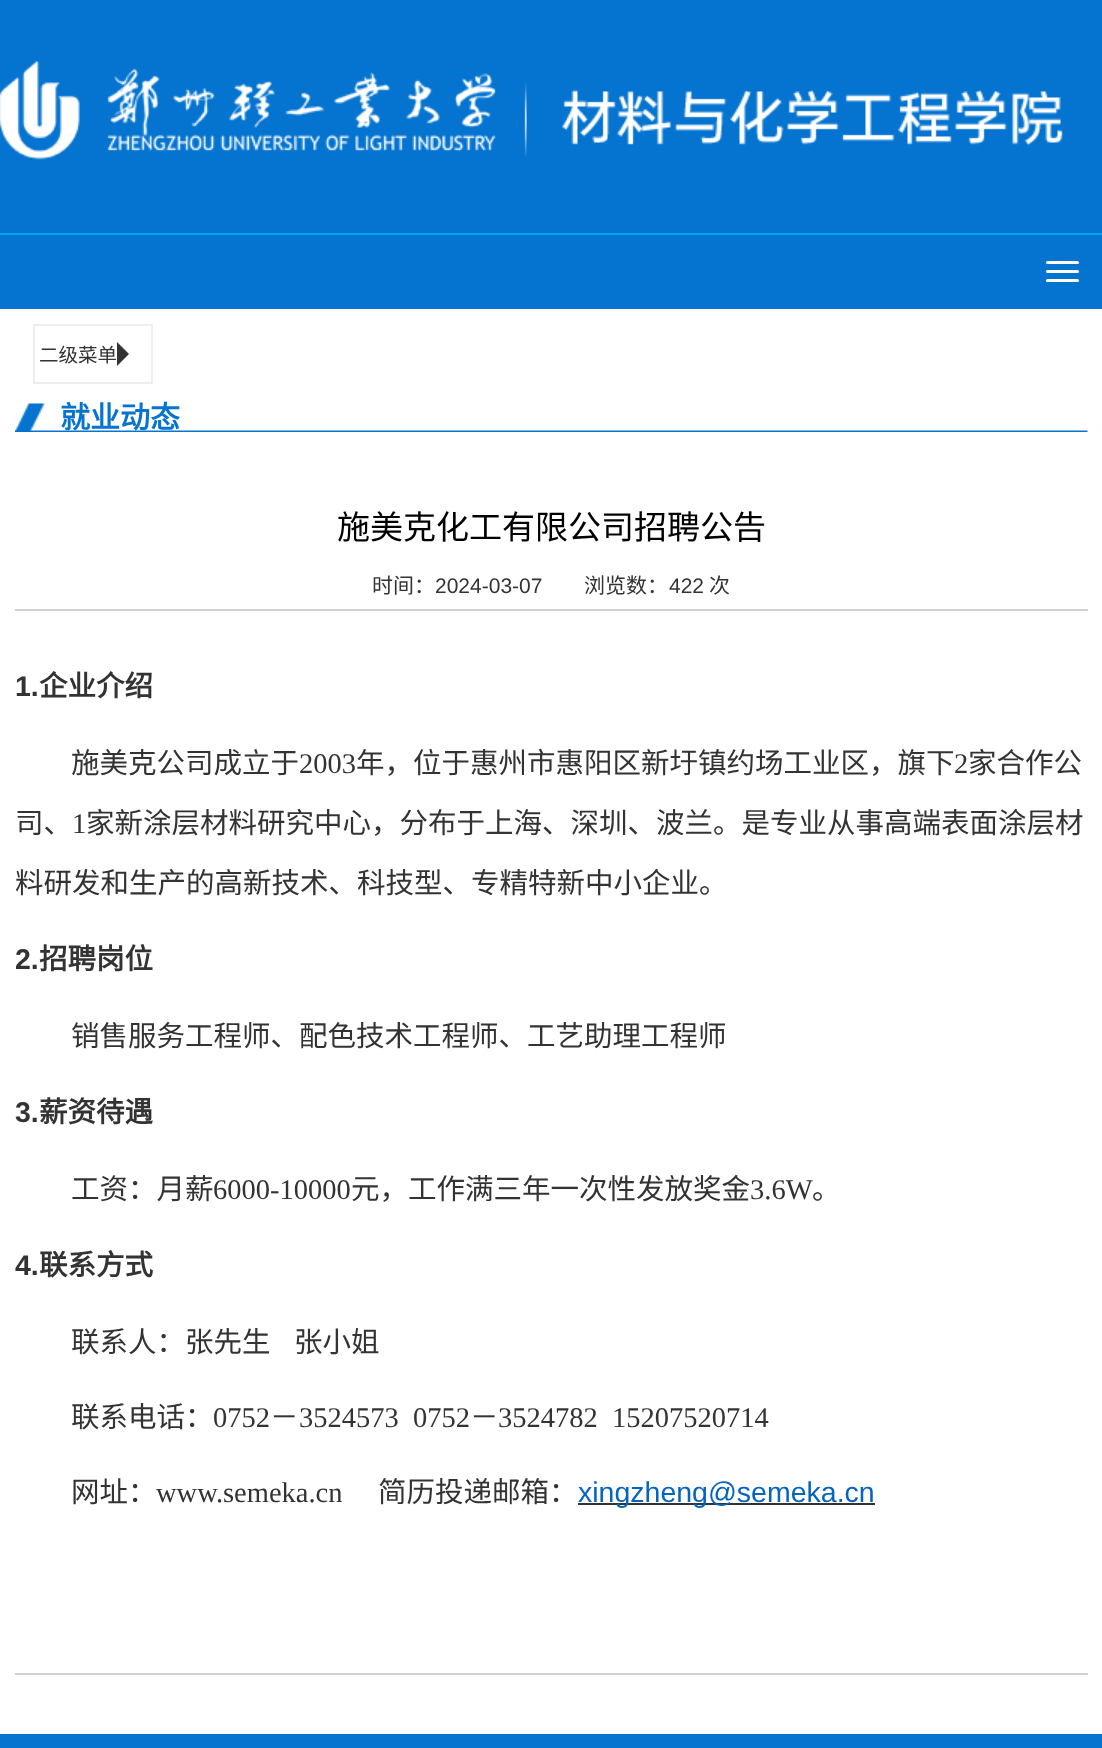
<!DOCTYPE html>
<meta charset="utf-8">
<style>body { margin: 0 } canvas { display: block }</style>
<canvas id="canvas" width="1102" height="1748"></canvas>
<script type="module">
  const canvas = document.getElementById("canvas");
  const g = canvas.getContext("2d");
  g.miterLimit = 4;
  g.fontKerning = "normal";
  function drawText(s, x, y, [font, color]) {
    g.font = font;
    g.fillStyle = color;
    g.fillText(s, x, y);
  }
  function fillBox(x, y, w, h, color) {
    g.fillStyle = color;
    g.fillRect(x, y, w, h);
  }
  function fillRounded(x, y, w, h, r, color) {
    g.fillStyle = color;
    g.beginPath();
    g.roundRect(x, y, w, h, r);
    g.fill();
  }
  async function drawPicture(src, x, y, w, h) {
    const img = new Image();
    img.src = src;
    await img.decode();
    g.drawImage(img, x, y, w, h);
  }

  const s1 = ["19.5px Noto Sans CJK SC", "#333333"];
  const s2 = ["bold 30px Noto Sans CJK SC", "#0574D0"];
  const s3 = ["33px Noto Sans CJK SC", "#000000"];
  const s4 = ["21px Noto Sans CJK SC", "#333333"];
  const s5 = ["21px Liberation Sans", "#333333"];
  const s6 = ["bold 28.5px Liberation Sans", "#333333"];
  const s7 = ["bold 28.5px Noto Sans CJK SC", "#333333"];
  const s8 = ["28.5px Noto Sans CJK SC", "#333333"];
  const s9 = ["28.5px Liberation Serif", "#333333"];
  const s10 = ["28.5px Liberation Sans", "#0563C1"];

  fillBox(0, 0, 1102, 1748, "#0574D0");
  await drawPicture("pic1.png", 0, 61, 1063, 99);
  fillBox(0, 233, 1102, 2, "#00A4F9");
  fillRounded(1046, 261, 33, 3, 1.5, "#FFFFFF");
  fillRounded(1046, 270, 33, 3, 1.5, "#FFFFFF");
  fillRounded(1046, 279, 33, 3, 1.5, "#FFFFFF");
  fillBox(0, 309, 1102, 1425, "#FFFFFF");
  g.strokeStyle = "#EEEEEE";
  g.lineWidth = 2;
  g.strokeRect(34, 325, 118, 58);
  drawText("二级菜单", 39, 362, s1);
  g.beginPath();
  g.moveTo(117, 366);
  g.lineTo(117, 342);
  g.lineTo(129, 354);
  g.closePath();
  g.fill();
  await drawPicture("pic2.png", 15, 430, 1073, 2);
  await drawPicture("pic3.png", 15, 403, 30, 28);
  drawText("就业动态", 60, 428, s2);
  fillBox(15, 1673, 1073, 2, "#D2D2D2");
  drawText("施美克化工有限公司招聘公告", 337, 539, s3);
  fillBox(15, 609, 1073, 2, "#D2D2D2");
  drawText("时间：", 372, 593, s4);
  drawText("2024-03-07", 435, 593, s5);
  drawText("浏览数：", 584, 593, s4);
  drawText("422", 669, 593, s5);
  drawText("次", 709, 593, s4);
  drawText("1.", 15, 696, s6);
  drawText("企业介绍", 39, 696, s7);
  drawText("施美克公司成立于", 71, 773, s8);
  drawText("2003", 299, 773, s9);
  drawText("年，位于惠州市惠阳区新圩镇约场工业区，旗下", 356, 773, s8);
  drawText("2", 954, 773, s9);
  drawText("家合作公", 968, 773, s8);
  drawText("司、", 15, 833, s8);
  drawText("1", 72, 833, s9);
  drawText("家新涂层材料研究中心，分布于上海、深圳、波兰。是专业从事高端表面涂层材", 86, 833, s8);
  drawText("料研发和生产的高新技术、科技型、专精特新中小企业。", 15, 893, s8);
  drawText("2.", 15, 969, s6);
  drawText("招聘岗位", 39, 969, s7);
  drawText("销售服务工程师、配色技术工程师、工艺助理工程师", 71, 1046, s8);
  drawText("3.", 15, 1122, s6);
  drawText("薪资待遇", 39, 1122, s7);
  drawText("工资：月薪", 71, 1199, s8);
  drawText("6000-10000", 213, 1199, s9);
  drawText("元，工作满三年一次性发放奖金", 351, 1199, s8);
  drawText("3.6W", 750, 1199, s9);
  drawText("。", 812, 1199, s8);
  drawText("4.", 15, 1275, s6);
  drawText("联系方式", 39, 1275, s7);
  drawText("联系人：张先生", 71, 1352, s8);
  drawText("张小姐", 294, 1352, s8);
  drawText("联系电话：", 71, 1427, s8);
  drawText("0752", 213, 1427, s9);
  drawText("－", 270, 1427, s8);
  drawText("3524573  0752", 299, 1427, s9);
  drawText("－", 470, 1427, s8);
  drawText("3524782  15207520714", 498, 1427, s9);
  drawText("网址：", 71, 1502, s8);
  drawText("www.semeka.cn", 156, 1502, s9);
  drawText("简历投递邮箱：", 378, 1502, s8);
  fillBox(578, 1503, 297, 2, "#333333");
  drawText("xingzheng@semeka.cn", 578, 1502, s10);
</script>
